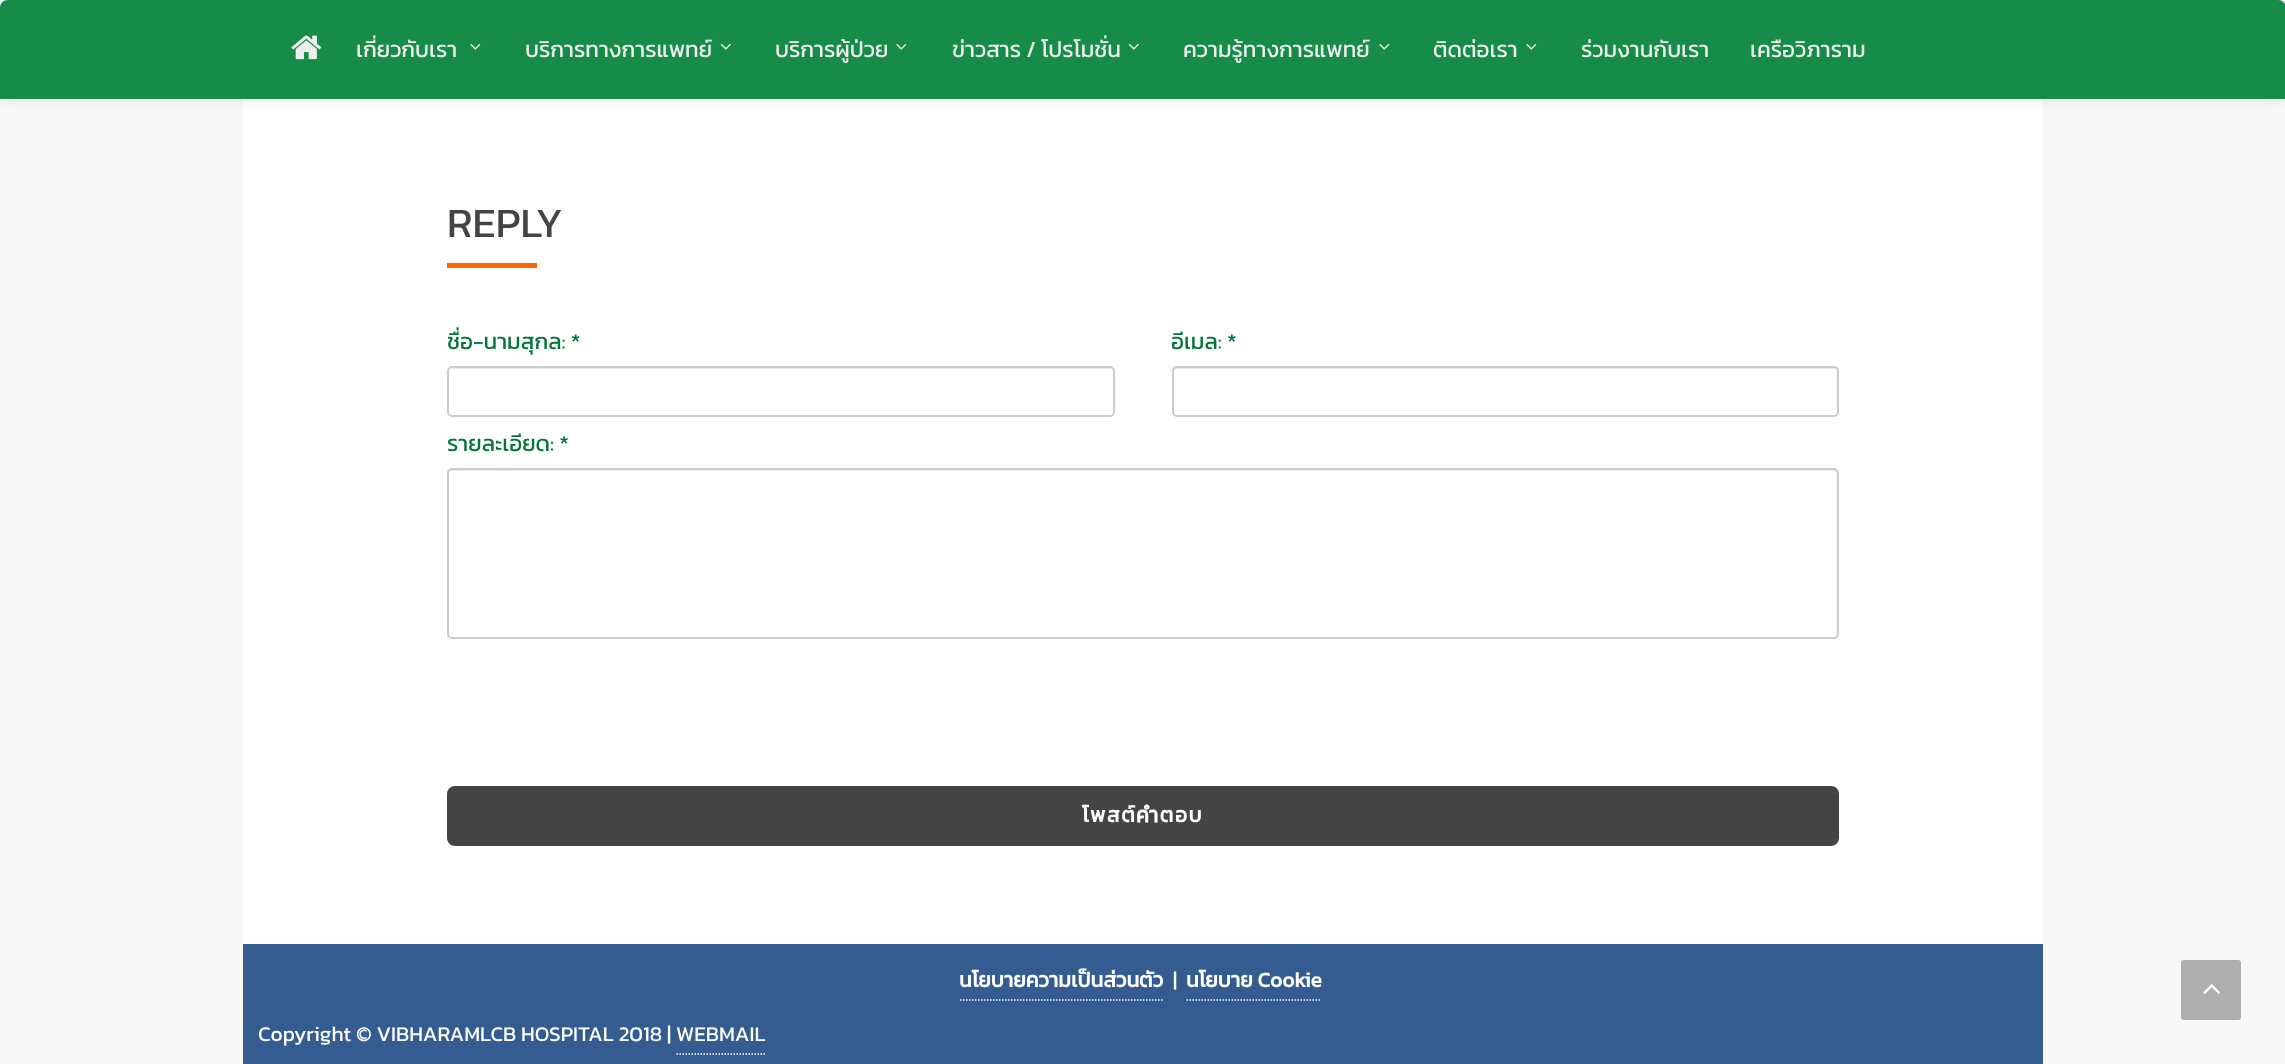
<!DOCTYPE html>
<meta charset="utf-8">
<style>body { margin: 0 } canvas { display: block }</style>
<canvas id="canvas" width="2285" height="1064"></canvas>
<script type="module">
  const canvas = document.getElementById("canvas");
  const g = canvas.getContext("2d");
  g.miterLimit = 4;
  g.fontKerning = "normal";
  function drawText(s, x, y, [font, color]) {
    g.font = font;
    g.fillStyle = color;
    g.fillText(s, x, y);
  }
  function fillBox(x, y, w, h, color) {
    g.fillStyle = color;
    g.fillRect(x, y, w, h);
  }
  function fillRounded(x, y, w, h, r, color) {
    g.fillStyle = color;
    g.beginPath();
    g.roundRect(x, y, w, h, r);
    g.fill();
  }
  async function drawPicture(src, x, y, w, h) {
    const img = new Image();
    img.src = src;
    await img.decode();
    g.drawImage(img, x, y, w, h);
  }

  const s1 = ["22.5px Kanit", "#EEEEEE"];
  const s2 = ["42px Kanit", "#444444"];
  const s3 = ["22.5px Kanit", "#037538"];
  const s4 = ["bold 21px Kanit", "#FFFFFF"];
  const s5 = ["21px Kanit", "#FFFFFF"];

  fillBox(0, 0, 2285, 1064, "#F8F8F8");
  fillBox(243, 99, 1800, 845, "#FFFFFF");
  g.fillStyle = "rgba(0, 0, 0, 0.1)";
  g.filter = "blur(7.5px)";
  g.beginPath();
  g.roundRect(0, 0, 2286, 99, 8);
  g.fill();
  g.filter = "none";
  g.fillStyle = "#168C48";
  g.beginPath();
  g.moveTo(8, 0);
  g.lineTo(2278, 0);
  g.bezierCurveTo(2282.5, 0, 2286, 3.5, 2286, 8);
  g.lineTo(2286, 99);
  g.lineTo(0, 99);
  g.lineTo(0, 8);
  g.bezierCurveTo(0, 3.5, 3.5, 0, 8, 0);
  g.closePath();
  g.fill();
  await drawPicture("pic1.png", 291, 35, 31, 25);
  drawText("เกี่ยวกับเรา", 356, 57, s1);
  await drawPicture("pic2.png", 470, 43, 11, 7);
  drawText("บริการทางการแพทย์", 525, 57, s1);
  await drawPicture("pic3.png", 720, 43, 11, 7);
  drawText("บริการผู้ป่วย", 775, 57, s1);
  await drawPicture("pic2.png", 896, 43, 11, 7);
  drawText("ข่าวสาร / โปรโมชั่น", 952, 57, s1);
  await drawPicture("pic3.png", 1128, 43, 11, 7);
  drawText("ความรู้ทางการแพทย์", 1183, 57, s1);
  await drawPicture("pic2.png", 1379, 43, 11, 7);
  drawText("ติดต่อเรา", 1433, 57, s1);
  await drawPicture("pic2.png", 1526, 43, 11, 7);
  drawText("ร่วมงานกับเรา", 1581, 57, s1);
  drawText("เครือวิภาราม", 1750, 57, s1);
  drawText("REPLY", 447, 237, s2);
  fillBox(447, 263, 90, 5, "#FF6600");
  drawText("ชื่อ-นามสุกล: *", 447, 349, s3);
  g.fillStyle = "#ECECEC";
  g.beginPath();
  g.moveTo(452, 369);
  g.lineTo(1110, 369);
  g.bezierCurveTo(1112, 369, 1113, 370, 1113, 372);
  g.lineTo(1113, 371);
  g.bezierCurveTo(1113, 369, 1112, 368, 1110, 368);
  g.lineTo(452, 368);
  g.bezierCurveTo(451, 368, 450, 369, 449, 370);
  g.closePath();
  g.fill();
  g.beginPath();
  g.roundRect(448, 367, 666, 49, 4);
  g.strokeStyle = "#CCCCCC";
  g.lineWidth = 2;
  g.stroke();
  drawText("อีเมล: *", 1171, 349, s3);
  g.fillStyle = "#ECECEC";
  g.beginPath();
  g.moveTo(1176, 369);
  g.lineTo(1834, 369);
  g.bezierCurveTo(1836, 369, 1838, 370, 1838, 372);
  g.lineTo(1838, 371);
  g.bezierCurveTo(1838, 369, 1837, 368, 1835, 368);
  g.lineTo(1176, 368);
  g.bezierCurveTo(1174, 368, 1173, 369, 1173, 371);
  g.lineTo(1173, 372);
  g.bezierCurveTo(1173, 370, 1174, 369, 1176, 369);
  g.closePath();
  g.fill();
  g.beginPath();
  g.roundRect(1173, 367, 665, 49, 4);
  g.stroke();
  drawText("รายละเอียด: *", 447, 451, s3);
  g.fillStyle = "#ECECEC";
  g.beginPath();
  g.moveTo(452, 471);
  g.lineTo(1834, 471);
  g.bezierCurveTo(1836, 471, 1838, 472, 1838, 474);
  g.lineTo(1838, 473);
  g.bezierCurveTo(1838, 471, 1837, 470, 1835, 470);
  g.lineTo(452, 470);
  g.bezierCurveTo(451, 470, 450, 471, 449, 472);
  g.closePath();
  g.fill();
  g.beginPath();
  g.roundRect(448, 469, 1390, 169, 4);
  g.stroke();
  fillRounded(447, 786, 1392, 60, 8, "#444444");
  g.letterSpacing = "1.5px";
  drawText("โพสต์คำตอบ", 1082, 822, s4);
  fillBox(243, 944, 1800, 120, "#345C91");
  g.beginPath();
  g.moveTo(960, 1000);
  g.lineTo(1164, 1000);
  g.strokeStyle = "#FFFFFF";
  g.lineWidth = 1.5;
  g.setLineDash([1.5, 1.5]);
  g.stroke();
  g.letterSpacing = "0px";
  drawText("นโยบายความเป็นส่วนตัว", 959, 987, s4);
  drawText("|", 1173, 987, s5);
  g.beginPath();
  g.moveTo(1186.5, 1000);
  g.lineTo(1321.5, 1000);
  g.stroke();
  drawText("นโยบาย Cookie", 1186, 987, s4);
  drawText("Copyright © VIBHARAMLCB HOSPITAL 2018 | WEBMAIL", 258, 1041, s5);
  g.beginPath();
  g.moveTo(676.5, 1054);
  g.lineTo(765, 1054);
  g.stroke();
  fillRounded(2181, 960, 60, 60, 3, "#AEAEAE");
  await drawPicture("pic4.png", 2203, 984, 17, 10);
</script>
